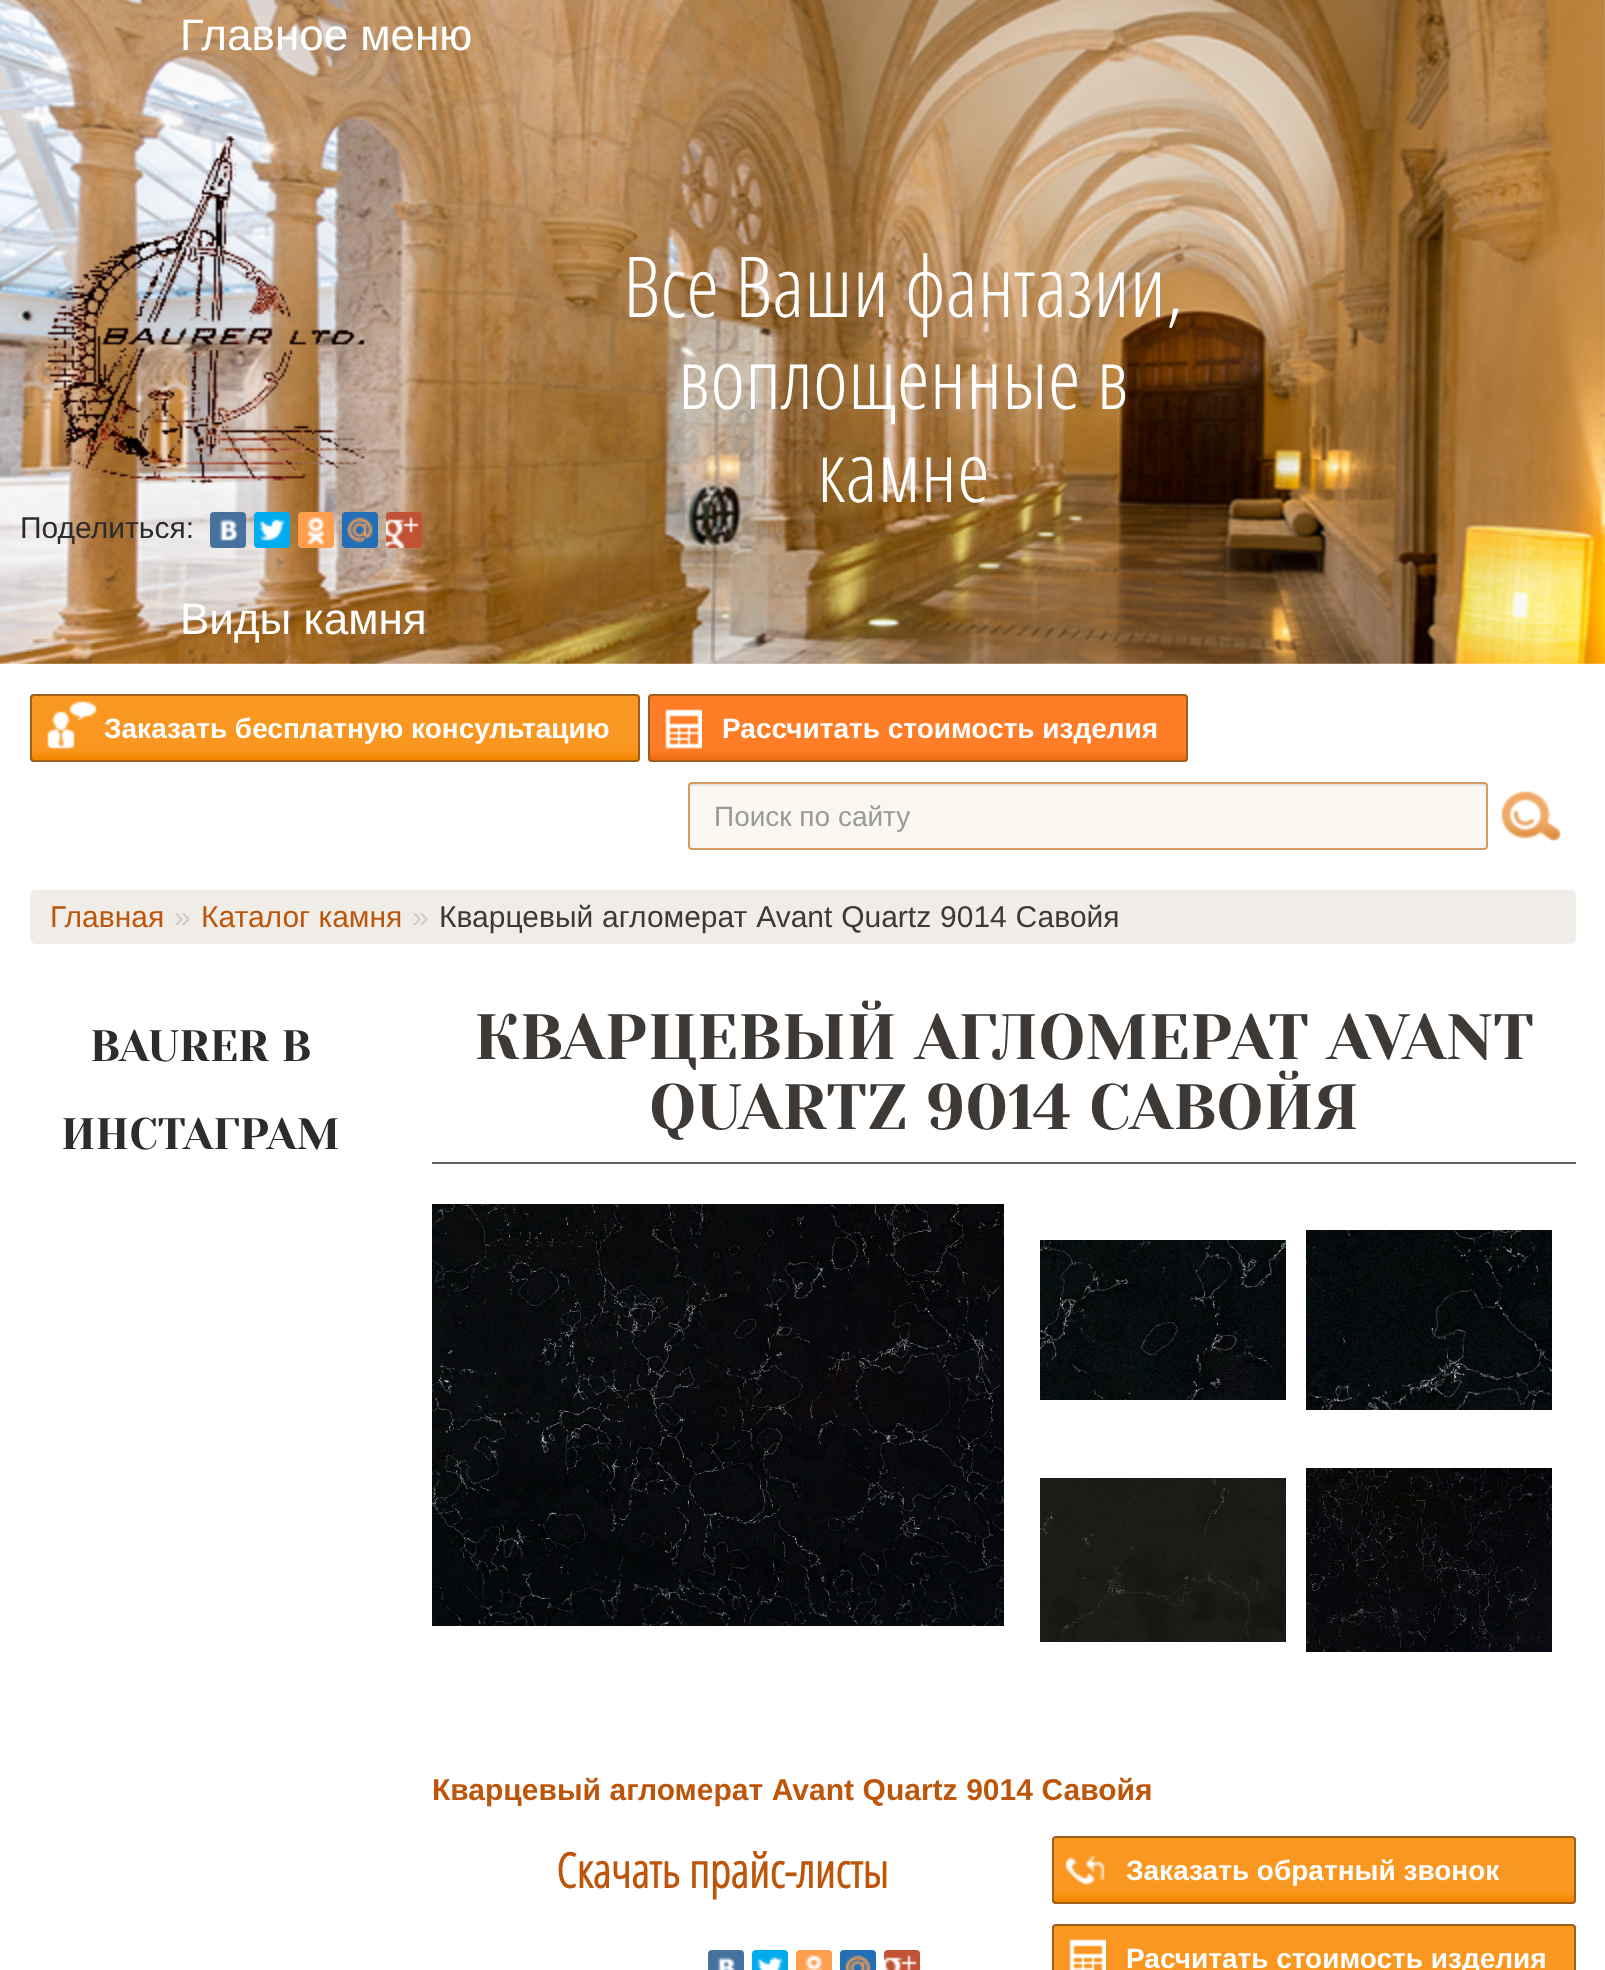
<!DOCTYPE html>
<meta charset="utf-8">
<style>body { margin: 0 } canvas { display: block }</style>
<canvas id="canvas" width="1605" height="1970"></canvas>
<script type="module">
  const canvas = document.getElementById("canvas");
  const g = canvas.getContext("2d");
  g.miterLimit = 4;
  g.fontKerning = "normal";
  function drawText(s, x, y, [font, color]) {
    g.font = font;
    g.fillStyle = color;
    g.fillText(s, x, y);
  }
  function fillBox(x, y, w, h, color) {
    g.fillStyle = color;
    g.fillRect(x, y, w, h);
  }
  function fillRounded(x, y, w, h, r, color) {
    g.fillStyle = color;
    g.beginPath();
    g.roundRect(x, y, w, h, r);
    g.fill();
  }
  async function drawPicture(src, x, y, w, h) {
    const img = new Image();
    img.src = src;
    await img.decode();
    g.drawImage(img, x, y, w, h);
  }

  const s1 = ["44px Liberation Sans", "#FFFFFF"];
  const s2 = ["300 84px Open Sans Condensed", "#FFFFFF"];
  const s3 = ["30px Liberation Sans", "#2D2B2B"];
  const s4 = ["bold 28px Liberation Sans", "#FFFFFF"];
  const s5 = ["28px Liberation Sans", "#999999"];
  const s6 = ["30px Liberation Sans", "#BD550A"];
  const s7 = ["30px Liberation Sans", "#CCCCCC"];
  const s8 = ["30px Liberation Sans", "#3F3935"];
  const s9 = ["44px Yeseva One", "#2D2B2B"];
  const s10 = ["64px Yeseva One", "#3F3935"];
  const s11 = ["bold 30px Liberation Sans", "#BD550A"];
  const s12 = ["bold 48px Open Sans Condensed", "#BD550A"];

  fillBox(0, 0, 1605, 1970, "#FFFFFF");
  await drawPicture("pic1.png", 0, 0, 1605, 664);
  drawText("Главное меню", 180, 50, s1);
  drawText("Все Ваши фантазии,", 623, 317, s2);
  drawText("воплощенные в", 678, 409, s2);
  drawText("камне", 817, 502, s2);
  drawText("Поделиться:", 20, 538, s3);
  fillRounded(210, 512, 36, 36, 4, "#48729E");
  await drawPicture("pic2.png", 219, 519, 20, 22);
  fillRounded(254, 512, 36, 36, 4, "#00ACED");
  await drawPicture("pic3.png", 259, 519, 26, 22);
  fillRounded(298, 512, 36, 36, 4, "#FF9F4D");
  await drawPicture("pic4.png", 307, 517, 18, 28);
  fillRounded(342, 512, 36, 36, 4, "#226EB7");
  await drawPicture("pic5.png", 347, 517, 26, 26);
  fillRounded(386, 512, 36, 36, 4, "#C25234");
  await drawPicture("pic6.png", 386, 517, 33, 31);
  drawText("Виды камня", 180, 634, s1);
  await drawPicture("pic7.png", 47, 135, 320, 350);
  await drawPicture("pic8.png", 30, 696, 610, 66);
  g.beginPath();
  g.roundRect(31, 695, 608, 66, 3);
  g.strokeStyle = "#9F5F1B";
  g.lineWidth = 2;
  g.stroke();
  await drawPicture("pic9.png", 47, 701, 50, 48);
  drawText("Заказать бесплатную консультацию", 104, 738, s4);
  await drawPicture("pic10.png", 648, 696, 540, 66);
  g.beginPath();
  g.roundRect(649, 695, 538, 66, 3);
  g.stroke();
  await drawPicture("pic11.png", 665, 709, 37, 40);
  drawText("Рассчитать стоимость изделия", 722, 738, s4);
  fillRounded(688, 782, 800, 68, 4, "#FAF7F0");
  g.fillStyle = "#E7E4DE";
  g.beginPath();
  g.moveTo(692, 786);
  g.lineTo(1484, 786);
  g.bezierCurveTo(1485, 786, 1486, 787, 1486, 788);
  g.bezierCurveTo(1486, 787, 1486, 785, 1485, 785);
  g.lineTo(1484, 784);
  g.lineTo(692, 784);
  g.lineTo(690, 785);
  g.lineTo(690, 788);
  g.bezierCurveTo(690, 787, 691, 786, 692, 786);
  g.closePath();
  g.fill();
  g.beginPath();
  g.roundRect(689, 783, 798, 66, 3);
  g.strokeStyle = "#D79D60";
  g.stroke();
  drawText("Поиск по сайту", 714, 826, s5);
  await drawPicture("pic12.png", 1501, 791, 60, 50);
  fillRounded(30, 890, 1546, 54, 6, "#F0EDE8");
  drawText("Главная", 50, 927, s6);
  drawText("»", 174, 927, s7);
  drawText("Каталог камня", 201, 927, s6);
  drawText("»", 412, 927, s7);
  g.wordSpacing = "0.5px";
  drawText("Кварцевый агломерат Avant Quartz 9014 Савойя", 439, 927, s8);
  g.wordSpacing = "0px";
  drawText("BAURER В", 90, 1061, s9);
  drawText("ИНСТАГРАМ", 61, 1149, s9);
  fillBox(432, 1162, 1144, 2, "#635F5C");
  drawText("КВАРЦЕВЫЙ АГЛОМЕРАТ AVANT", 474, 1059, s10);
  drawText("QUARTZ 9014 САВОЙЯ", 649, 1129, s10);
  await drawPicture("pic13.png", 432, 1204, 572, 422);
  await drawPicture("pic14.png", 1040, 1240, 246, 160);
  await drawPicture("pic15.png", 1306, 1230, 246, 180);
  await drawPicture("pic16.png", 1040, 1478, 246, 164);
  await drawPicture("pic17.png", 1306, 1468, 246, 184);
  g.wordSpacing = "0.25px";
  drawText("Кварцевый агломерат Avant Quartz 9014 Савойя", 432, 1800, s11);
  g.wordSpacing = "0px";
  drawText("Скачать прайс-листы", 556, 1888, s12);
  fillRounded(708, 1950, 36, 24, 4, "#48729E");
  await drawPicture("pic18.png", 717, 1957, 19, 13);
  fillRounded(752, 1950, 36, 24, 4, "#00ACED");
  await drawPicture("pic19.png", 757, 1957, 26, 13);
  fillRounded(796, 1950, 36, 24, 4, "#FF9F4D");
  await drawPicture("pic20.png", 805, 1955, 18, 15);
  fillRounded(840, 1950, 36, 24, 4, "#226EB7");
  await drawPicture("pic21.png", 845, 1955, 26, 15);
  fillRounded(884, 1950, 36, 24, 4, "#C25234");
  await drawPicture("pic22.png", 884, 1955, 33, 15);
  await drawPicture("pic23.png", 1052, 1838, 524, 66);
  g.beginPath();
  g.roundRect(1053, 1837, 522, 66, 3);
  g.strokeStyle = "#9F5F1B";
  g.stroke();
  await drawPicture("pic24.png", 1065, 1855, 40, 30);
  drawText("Заказать обратный звонок", 1126, 1880, s4);
  fillBox(1052, 1926, 524, 44, "#FA9720");
  g.beginPath();
  g.roundRect(1053, 1925, 522, 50, 3);
  g.stroke();
  await drawPicture("pic25.png", 1069, 1939, 37, 31);
  drawText("Расчитать стоимость изделия", 1126, 1968, s4);
</script>
